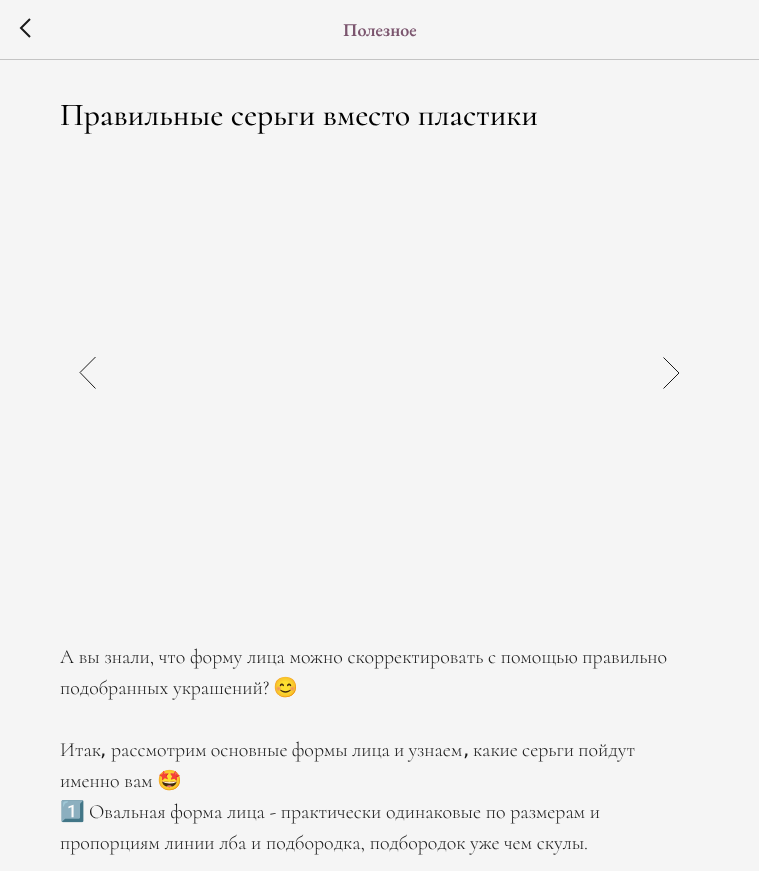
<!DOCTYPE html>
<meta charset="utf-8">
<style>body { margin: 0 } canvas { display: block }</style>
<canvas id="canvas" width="759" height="871"></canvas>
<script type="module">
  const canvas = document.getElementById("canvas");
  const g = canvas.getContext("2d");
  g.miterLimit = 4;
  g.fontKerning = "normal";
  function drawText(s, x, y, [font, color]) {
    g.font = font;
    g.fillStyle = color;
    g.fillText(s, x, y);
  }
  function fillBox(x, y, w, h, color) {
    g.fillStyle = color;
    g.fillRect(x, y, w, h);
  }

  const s1 = ["600 18px EB Garamond", "#7B556E"];
  const s2 = ["500 32px Cormorant", "#000000"];
  const s3 = ["300 20px Cormorant", "#1A1A1A"];
  const s4 = ["20px Noto Color Emoji", "#1A1A1A"];
  const s5 = ["20px DejaVu Sans", "#1A1A1A"];
  const s6 = ["20px 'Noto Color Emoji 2'", "#1A1A1A"];

  fillBox(0, 0, 759, 871, "#F5F5F5");
  fillBox(0, 59, 759, 1, "#C4C4C4");
  g.beginPath();
  g.moveTo(30, 37);
  g.lineTo(21, 28);
  g.lineTo(30, 19);
  g.strokeStyle = "#1A1A1A";
  g.lineWidth = 2;
  g.stroke();
  drawText("Полезное", 343, 36, s1);
  drawText("Правильные серьги вместо пластики", 60, 125, s2);
  g.beginPath();
  g.moveTo(95.5, 388.5);
  g.lineTo(80, 372.5);
  g.lineTo(95.5, 357);
  g.lineWidth = 1;
  g.stroke();
  g.beginPath();
  g.moveTo(663.5, 357.5);
  g.lineTo(679, 373);
  g.lineTo(663.5, 388.5);
  g.stroke();
  drawText("А вы знали, что форму лица можно скорректировать с помощью правильно", 60, 663, s3);
  drawText("подобранных украшений?", 60, 694, s3);
  drawText("😊", 273, 694, s4);
  drawText("Итак", 60, 756, s3);
  drawText(",", 100, 756, s5);
  g.wordSpacing = "-0.5px";
  drawText("рассмотрим основные формы лица и узнаем", 111, 756, s3);
  g.wordSpacing = "0px";
  drawText(",", 463, 756, s5);
  g.wordSpacing = "-0.5px";
  drawText("какие серьги пойдут", 473, 756, s3);
  g.wordSpacing = "0px";
  drawText("именно вам", 60, 787, s3);
  drawText("🤩", 157, 787, s6);
  drawText("1️⃣", 60, 818, s4);
  drawText("Овальная форма лица - практически одинаковые по размерам и", 89, 818, s3);
  drawText("пропорциям линии лба и подбородка, подбородок уже чем скулы.", 60, 849, s3);
</script>
